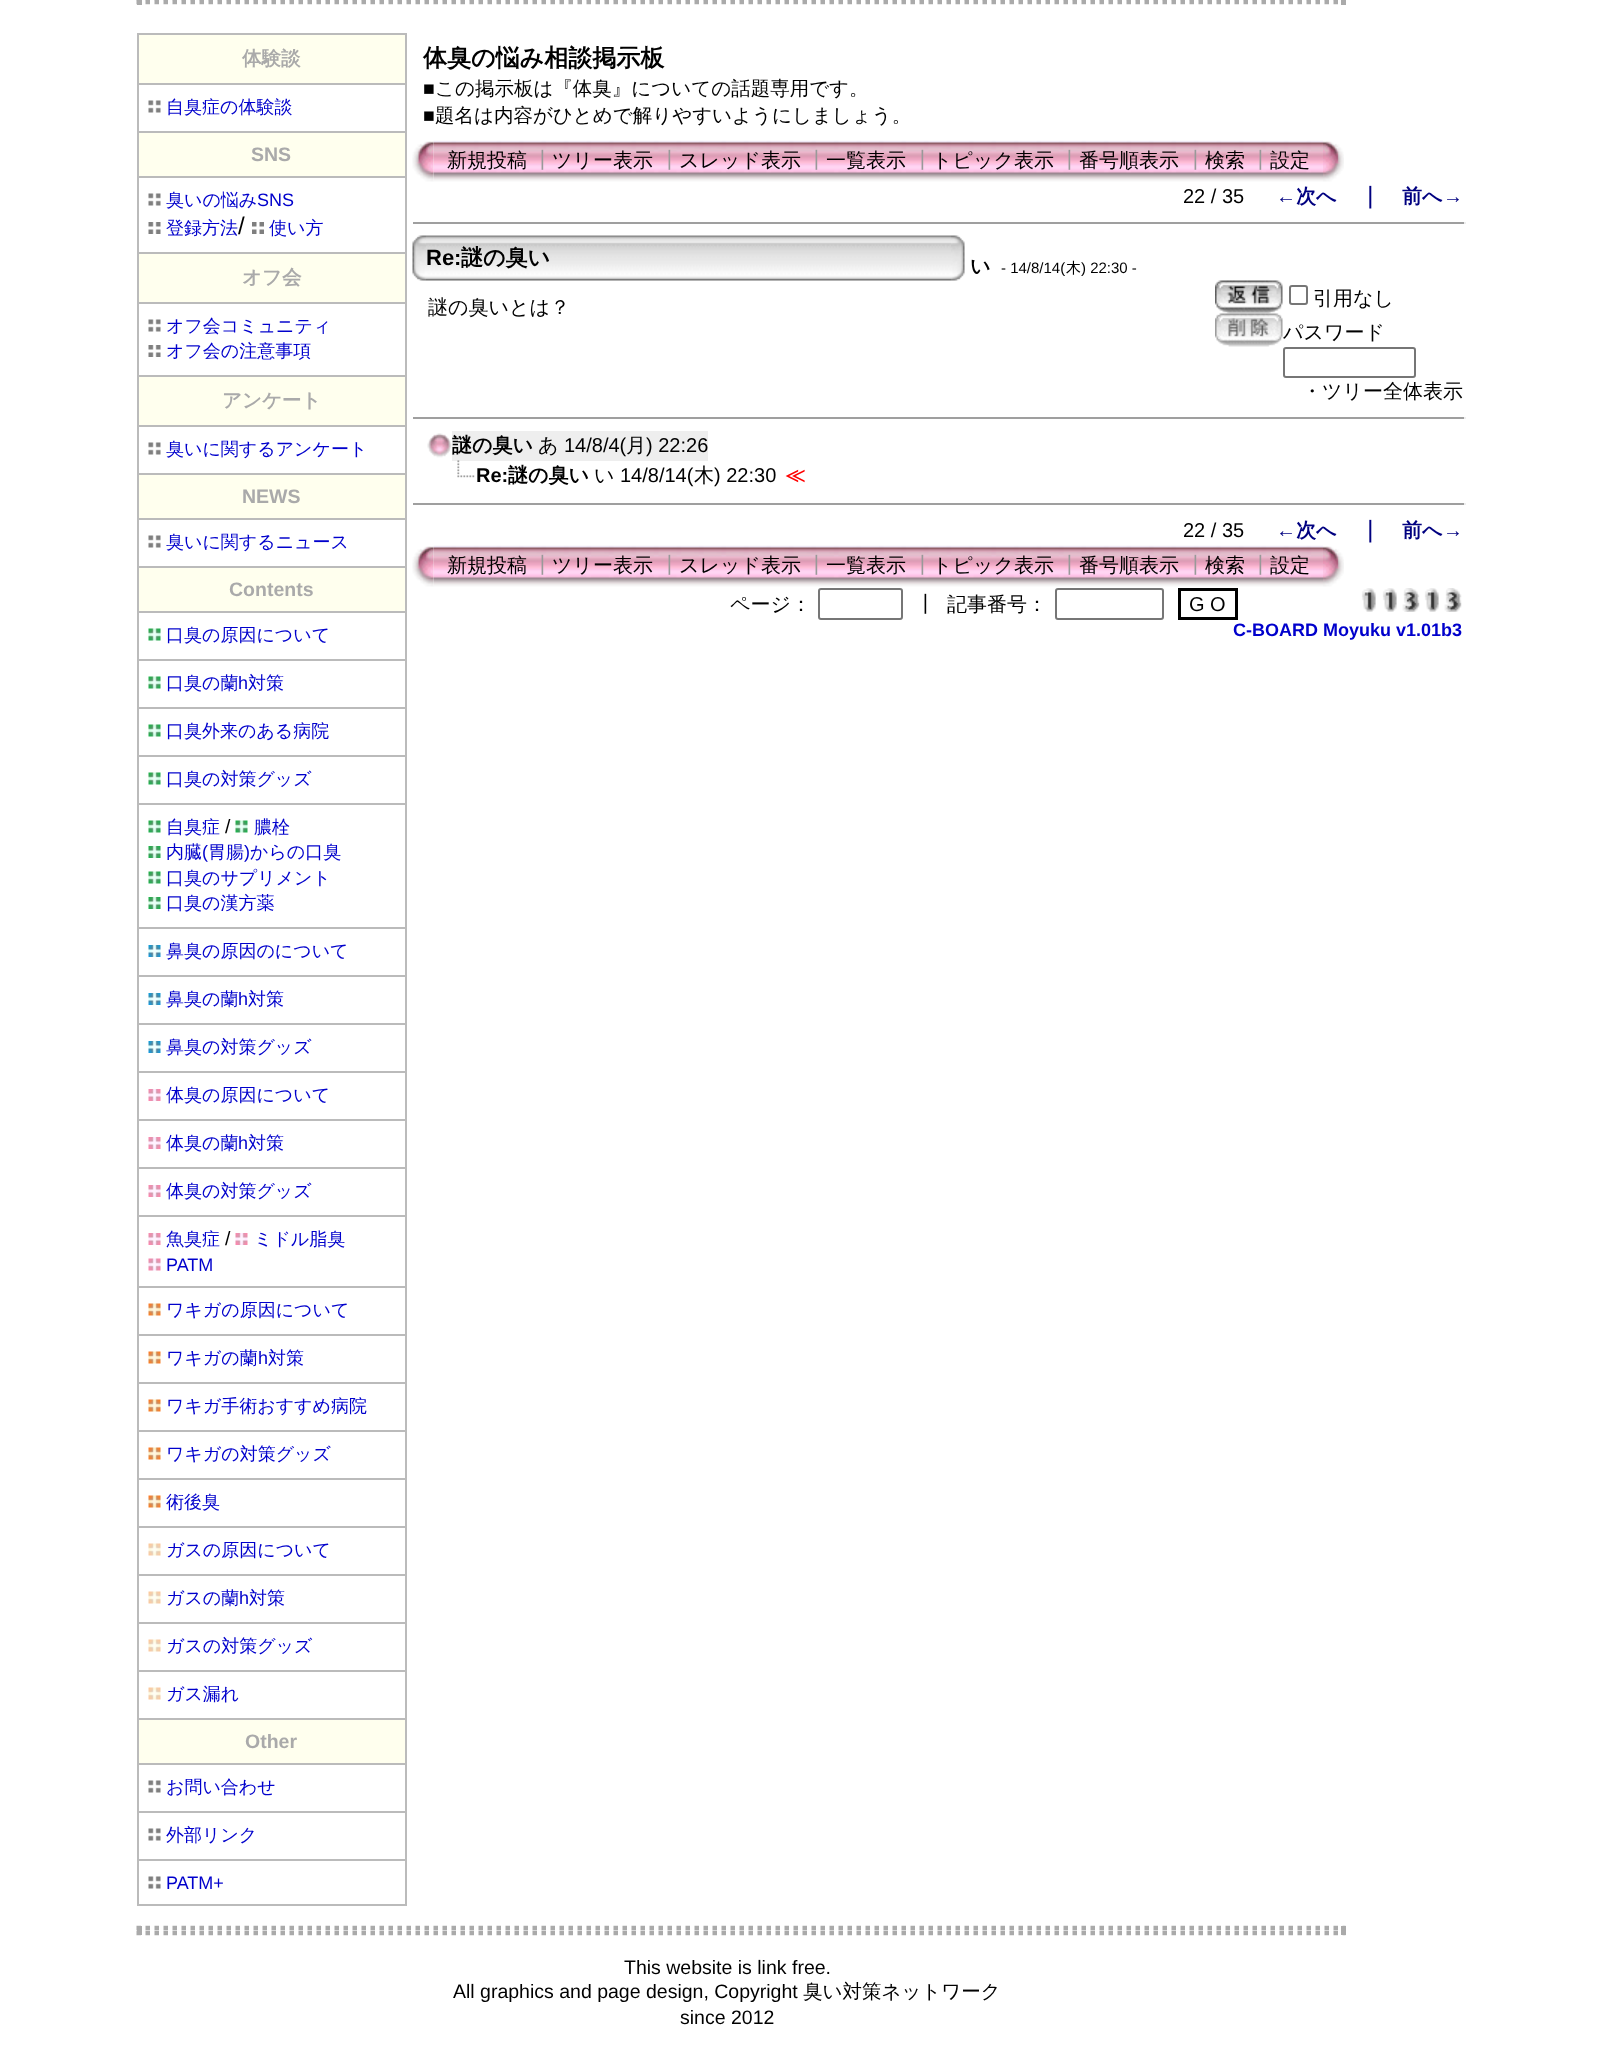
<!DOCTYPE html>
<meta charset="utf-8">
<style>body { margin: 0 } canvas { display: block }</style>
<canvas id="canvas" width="1605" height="2050"></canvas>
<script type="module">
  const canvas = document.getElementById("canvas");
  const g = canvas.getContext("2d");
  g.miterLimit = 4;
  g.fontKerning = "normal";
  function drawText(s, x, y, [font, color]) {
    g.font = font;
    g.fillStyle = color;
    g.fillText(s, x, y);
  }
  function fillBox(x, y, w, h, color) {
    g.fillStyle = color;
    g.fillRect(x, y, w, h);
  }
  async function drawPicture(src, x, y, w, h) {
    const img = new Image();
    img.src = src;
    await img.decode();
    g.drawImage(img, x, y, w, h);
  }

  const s1 = ["bold 19.5px WenQuanYi Zen Hei", "#AAAAAA"];
  const s2 = ["500 18px WenQuanYi Zen Hei", "#0000CC"];
  const s3 = ["bold 19.5px Liberation Sans", "#AAAAAA"];
  const s4 = ["18px Liberation Sans", "#0000CC"];
  const s5 = ["24px Liberation Sans", "#000000"];
  const s6 = ["19.5px Liberation Sans", "#000000"];
  const s7 = ["bold 24px WenQuanYi Zen Hei", "#000000"];
  const s8 = ["500 19.5px WenQuanYi Zen Hei", "#000000"];
  const s9 = ["500 20px WenQuanYi Zen Hei", "#000000"];
  const s10 = ["500 20px WenQuanYi Zen Hei", "#999999"];
  const s11 = ["20px Liberation Sans", "#000000"];
  const s12 = ["bold 20px Liberation Sans", "#000080"];
  const s13 = ["bold 20px WenQuanYi Zen Hei", "#000080"];
  const s14 = ["bold 22px WenQuanYi Zen Hei", "#000080"];
  const s15 = ["bold 22px Liberation Sans", "#000000"];
  const s16 = ["bold 22px WenQuanYi Zen Hei", "#000000"];
  const s17 = ["bold 20px WenQuanYi Zen Hei", "#000000"];
  const s18 = ["15px Liberation Sans", "#000000"];
  const s19 = ["500 15px WenQuanYi Zen Hei", "#000000"];
  const s20 = ["bold 20px Liberation Sans", "#000000"];
  const s21 = ["bold 20px WenQuanYi Zen Hei", "#FF0000"];
  const s22 = ["bold 18px Liberation Sans", "#0000CC"];

  fillBox(0, 0, 1605, 2050, "#FFFFFF");
  g.beginPath();
  g.moveTo(136.5, -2);
  g.lineTo(1345.5, -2);
  g.strokeStyle = "#AAAAAA";
  g.lineWidth = 4.5;
  g.setLineDash([4.5, 4.5]);
  g.stroke();
  fillBox(1341, 0, 5, 5, "#AAAAAA");
  g.beginPath();
  g.moveTo(136.5, 2);
  g.lineTo(1345.5, 2);
  g.stroke();
  fillBox(137, 0, 5, 5, "#AAAAAA");
  fillBox(137, 33, 270, 2, "#BBBBBB");
  fillBox(405, 33, 2, 1872, "#BBBBBB");
  fillBox(137, 1904, 270, 2, "#BBBBBB");
  fillBox(137, 33, 2, 1872, "#BBBBBB");
  fillBox(139, 35, 266, 48, "#FFFFEE");
  drawText("体験談", 242, 65, s1);
  fillBox(137, 83, 270, 2, "#BBBBBB");
  await drawPicture("pic1.png", 148, 100, 13, 13);
  drawText("自臭症の体験談", 166, 113, s2);
  fillBox(139, 133, 266, 43, "#FFFFEE");
  fillBox(137, 131, 270, 2, "#BBBBBB");
  drawText("SNS", 251, 161, s3);
  fillBox(137, 176, 270, 2, "#BBBBBB");
  await drawPicture("pic1.png", 148, 193, 13, 13);
  drawText("臭いの悩み", 166, 206, s2);
  drawText("SNS", 257, 206, s4);
  await drawPicture("pic2.png", 148, 222, 13, 12);
  drawText("登録方法", 166, 234, s2);
  drawText("/", 238, 234, s5);
  await drawPicture("pic3.png", 252, 222, 12, 12);
  drawText("使い方", 269, 234, s2);
  fillBox(139, 254, 266, 48, "#FFFFEE");
  fillBox(137, 252, 270, 2, "#BBBBBB");
  drawText("オフ会", 242, 284, s1);
  fillBox(137, 302, 270, 2, "#BBBBBB");
  await drawPicture("pic1.png", 148, 319, 13, 13);
  drawText("オフ会コミュニティ", 166, 332, s2);
  await drawPicture("pic2.png", 148, 345, 13, 12);
  drawText("オフ会の注意事項", 166, 357, s2);
  fillBox(139, 377, 266, 48, "#FFFFEE");
  fillBox(137, 375, 270, 2, "#BBBBBB");
  drawText("アンケート", 222, 407, s1);
  fillBox(137, 425, 270, 2, "#BBBBBB");
  await drawPicture("pic1.png", 148, 442, 13, 13);
  drawText("臭いに関するアンケート", 166, 455, s2);
  fillBox(139, 475, 266, 43, "#FFFFEE");
  fillBox(137, 473, 270, 2, "#BBBBBB");
  drawText("NEWS", 242, 503, s3);
  fillBox(137, 518, 270, 2, "#BBBBBB");
  await drawPicture("pic1.png", 148, 535, 13, 13);
  drawText("臭いに関するニュース", 166, 548, s2);
  fillBox(139, 568, 266, 43, "#FFFFEE");
  fillBox(137, 566, 270, 2, "#BBBBBB");
  drawText("Contents", 229, 596, s3);
  fillBox(137, 611, 270, 2, "#BBBBBB");
  await drawPicture("pic4.png", 148, 628, 13, 13);
  drawText("口臭の原因について", 166, 641, s2);
  fillBox(137, 659, 270, 2, "#BBBBBB");
  await drawPicture("pic4.png", 148, 676, 13, 13);
  drawText("口臭の蘭", 166, 689, s2);
  drawText("h", 238, 689, s4);
  drawText("対策", 248, 689, s2);
  fillBox(137, 707, 270, 2, "#BBBBBB");
  await drawPicture("pic4.png", 148, 724, 13, 13);
  drawText("口臭外来のある病院", 166, 737, s2);
  fillBox(137, 755, 270, 2, "#BBBBBB");
  await drawPicture("pic4.png", 148, 772, 13, 13);
  drawText("口臭の対策グッズ", 166, 785, s2);
  fillBox(137, 803, 270, 2, "#BBBBBB");
  await drawPicture("pic4.png", 148, 820, 13, 13);
  drawText("自臭症", 166, 833, s2);
  drawText("/", 225, 833, s6);
  await drawPicture("pic4.png", 235, 820, 13, 13);
  drawText("膿栓", 254, 833, s2);
  await drawPicture("pic5.png", 148, 846, 13, 12);
  drawText("内臓", 166, 858, s2);
  drawText("(", 202, 858, s4);
  drawText("胃腸", 208, 858, s2);
  drawText(")", 244, 858, s4);
  drawText("からの口臭", 250, 858, s2);
  await drawPicture("pic4.png", 148, 871, 13, 13);
  drawText("口臭のサプリメント", 166, 884, s2);
  await drawPicture("pic5.png", 148, 897, 13, 12);
  drawText("口臭の漢方薬", 166, 909, s2);
  fillBox(137, 927, 270, 2, "#BBBBBB");
  await drawPicture("pic6.png", 148, 945, 13, 12);
  drawText("鼻臭の原因のについて", 166, 957, s2);
  fillBox(137, 975, 270, 2, "#BBBBBB");
  await drawPicture("pic6.png", 148, 993, 13, 12);
  drawText("鼻臭の蘭", 166, 1005, s2);
  drawText("h", 238, 1005, s4);
  drawText("対策", 248, 1005, s2);
  fillBox(137, 1023, 270, 2, "#BBBBBB");
  await drawPicture("pic6.png", 148, 1041, 13, 12);
  drawText("鼻臭の対策グッズ", 166, 1053, s2);
  fillBox(137, 1071, 270, 2, "#BBBBBB");
  await drawPicture("pic7.png", 148, 1089, 13, 12);
  drawText("体臭の原因について", 166, 1101, s2);
  fillBox(137, 1119, 270, 2, "#BBBBBB");
  await drawPicture("pic7.png", 148, 1137, 13, 12);
  drawText("体臭の蘭", 166, 1149, s2);
  drawText("h", 238, 1149, s4);
  drawText("対策", 248, 1149, s2);
  fillBox(137, 1167, 270, 2, "#BBBBBB");
  await drawPicture("pic7.png", 148, 1185, 13, 12);
  drawText("体臭の対策グッズ", 166, 1197, s2);
  fillBox(137, 1215, 270, 2, "#BBBBBB");
  await drawPicture("pic7.png", 148, 1233, 13, 12);
  drawText("魚臭症", 166, 1245, s2);
  drawText("/", 225, 1245, s6);
  await drawPicture("pic7.png", 235, 1233, 13, 12);
  drawText("ミドル脂臭", 254, 1245, s2);
  await drawPicture("pic8.png", 148, 1258, 13, 13);
  drawText("PATM", 166, 1271, s4);
  fillBox(137, 1286, 270, 2, "#BBBBBB");
  await drawPicture("pic9.png", 148, 1303, 13, 13);
  drawText("ワキガの原因について", 166, 1316, s2);
  fillBox(137, 1334, 270, 2, "#BBBBBB");
  await drawPicture("pic9.png", 148, 1351, 13, 13);
  drawText("ワキガの蘭", 166, 1364, s2);
  drawText("h", 258, 1364, s4);
  drawText("対策", 268, 1364, s2);
  fillBox(137, 1382, 270, 2, "#BBBBBB");
  await drawPicture("pic9.png", 148, 1399, 13, 13);
  drawText("ワキガ手術おすすめ病院", 166, 1412, s2);
  fillBox(137, 1430, 270, 2, "#BBBBBB");
  await drawPicture("pic9.png", 148, 1447, 13, 13);
  drawText("ワキガの対策グッズ", 166, 1460, s2);
  fillBox(137, 1478, 270, 2, "#BBBBBB");
  await drawPicture("pic9.png", 148, 1495, 13, 13);
  drawText("術後臭", 166, 1508, s2);
  fillBox(137, 1526, 270, 2, "#BBBBBB");
  await drawPicture("pic10.png", 148, 1543, 13, 13);
  drawText("ガスの原因について", 166, 1556, s2);
  fillBox(137, 1574, 270, 2, "#BBBBBB");
  await drawPicture("pic10.png", 148, 1591, 13, 13);
  drawText("ガスの蘭", 166, 1604, s2);
  drawText("h", 239, 1604, s4);
  drawText("対策", 249, 1604, s2);
  fillBox(137, 1622, 270, 2, "#BBBBBB");
  await drawPicture("pic10.png", 148, 1639, 13, 13);
  drawText("ガスの対策グッズ", 166, 1652, s2);
  fillBox(137, 1670, 270, 2, "#BBBBBB");
  await drawPicture("pic10.png", 148, 1687, 13, 13);
  drawText("ガス漏れ", 166, 1700, s2);
  fillBox(139, 1720, 266, 43, "#FFFFEE");
  fillBox(137, 1718, 270, 2, "#BBBBBB");
  drawText("Other", 245, 1748, s3);
  fillBox(137, 1763, 270, 2, "#BBBBBB");
  await drawPicture("pic1.png", 148, 1780, 13, 13);
  drawText("お問い合わせ", 166, 1793, s2);
  fillBox(137, 1811, 270, 2, "#BBBBBB");
  await drawPicture("pic1.png", 148, 1828, 13, 13);
  drawText("外部リンク", 166, 1841, s2);
  fillBox(137, 1859, 270, 2, "#BBBBBB");
  await drawPicture("pic1.png", 148, 1876, 13, 13);
  drawText("PATM+", 166, 1889, s4);
  drawText("体臭の悩み相談掲示板", 423, 66, s7);
  drawText("■", 423, 95, s6);
  drawText("この掲示板は『体臭』についての話題専用です。", 435, 95, s8);
  drawText("■", 423, 122, s6);
  drawText("題名は内容がひとめで解りやすいようにしましょう。", 435, 122, s8);
  await drawPicture("pic12.png", 433, 140, 890, 42);
  await drawPicture("pic11.png", 412, 141, 22, 41);
  drawText("新規投稿", 447, 167, s9);
  drawText("┃", 532, 167, s10);
  drawText("ツリー表示", 552, 167, s9);
  drawText("┃", 659, 167, s10);
  drawText("スレッド表示", 679, 167, s9);
  drawText("┃", 806, 167, s10);
  drawText("一覧表示", 826, 167, s9);
  drawText("┃", 912, 167, s10);
  drawText("トピック表示", 932, 167, s9);
  drawText("┃", 1059, 167, s10);
  drawText("番号順表示", 1079, 167, s9);
  drawText("┃", 1185, 167, s10);
  drawText("検索", 1205, 167, s9);
  drawText("┃", 1250, 167, s10);
  drawText("設定", 1270, 167, s9);
  await drawPicture("pic13.png", 1323, 141, 21, 41);
  drawText("22 / 35", 1183, 203, s11);
  drawText("←", 1276, 203, s12);
  drawText("次へ", 1296, 203, s13);
  drawText("｜", 1359, 203, s14);
  drawText("前へ", 1402, 203, s13);
  drawText("→", 1443, 203, s12);
  fillBox(413, 222, 1053, 2, "#9F9F9F");
  fillBox(1464, 222, 2, 2, "#EEEEEE");
  await drawPicture("pic14.png", 412, 235, 14, 46);
  await drawPicture("pic15.png", 426, 235, 525, 46);
  drawText("Re:", 426, 265, s15);
  drawText("謎の臭い", 461, 265, s16);
  await drawPicture("pic16.png", 951, 235, 14, 46);
  drawText("い", 970, 273, s17);
  drawText("- 14/8/14(", 1001, 273, s18);
  drawText("木", 1066, 273, s19);
  drawText(") 22:30 -", 1081, 273, s18);
  drawText("謎の臭いとは？", 428, 314, s9);
  await drawPicture("pic17.png", 1215, 280, 68, 34);
  g.beginPath();
  g.roundRect(1290, 286, 17, 18, 2);
  g.strokeStyle = "#767676";
  g.lineWidth = 2;
  g.setLineDash([]);
  g.stroke();
  drawText("引用なし", 1313, 305, s9);
  await drawPicture("pic18.png", 1215, 313, 68, 34);
  drawText("パスワード", 1283, 339, s9);
  g.beginPath();
  g.roundRect(1284, 348, 131, 29, 2);
  g.stroke();
  drawText("・ツリー全体表示", 1302, 398, s9);
  fillBox(413, 417, 1053, 2, "#9F9F9F");
  fillBox(1464, 417, 2, 2, "#EEEEEE");
  await drawPicture("pic19.png", 427, 433, 25, 25);
  fillBox(452, 431, 256, 30, "#EEEEEE");
  drawText("謎の臭い", 452, 452, s17);
  drawText("あ", 538, 452, s9);
  drawText("14/8/4(", 564, 452, s11);
  drawText("月", 626, 452, s9);
  drawText(") 22:26", 646, 452, s11);
  await drawPicture("pic20.png", 457, 460, 18, 18);
  drawText("Re:", 476, 482, s20);
  drawText("謎の臭い", 508, 482, s17);
  drawText("い", 594, 482, s9);
  drawText("14/8/14(", 620, 482, s11);
  drawText("木", 694, 482, s9);
  drawText(") 22:30", 714, 482, s11);
  drawText("≪", 785, 482, s21);
  fillBox(413, 503, 1053, 2, "#9F9F9F");
  fillBox(1464, 503, 2, 2, "#EEEEEE");
  drawText("22 / 35", 1183, 537, s11);
  drawText("←", 1276, 537, s12);
  drawText("次へ", 1296, 537, s13);
  drawText("｜", 1359, 537, s14);
  drawText("前へ", 1402, 537, s13);
  drawText("→", 1443, 537, s12);
  await drawPicture("pic21.png", 433, 545, 890, 42);
  await drawPicture("pic11.png", 412, 546, 22, 41);
  drawText("新規投稿", 447, 572, s9);
  drawText("┃", 532, 572, s10);
  drawText("ツリー表示", 552, 572, s9);
  drawText("┃", 659, 572, s10);
  drawText("スレッド表示", 679, 572, s9);
  drawText("┃", 806, 572, s10);
  drawText("一覧表示", 826, 572, s9);
  drawText("┃", 912, 572, s10);
  drawText("トピック表示", 932, 572, s9);
  drawText("┃", 1059, 572, s10);
  drawText("番号順表示", 1079, 572, s9);
  drawText("┃", 1185, 572, s10);
  drawText("検索", 1205, 572, s9);
  drawText("┃", 1250, 572, s10);
  drawText("設定", 1270, 572, s9);
  await drawPicture("pic13.png", 1323, 546, 21, 41);
  drawText("ページ：", 730, 611, s9);
  g.beginPath();
  g.roundRect(819, 589, 83, 30, 2);
  g.stroke();
  drawText("┃", 915, 611, s9);
  drawText("記事番号：", 947, 611, s9);
  g.beginPath();
  g.roundRect(1056, 589, 107, 30, 2);
  g.stroke();
  g.strokeStyle = "#000000";
  g.lineWidth = 3;
  g.strokeRect(1179.5, 589.5, 57, 29);
  drawText("G O", 1189, 611, s11);
  await drawPicture("pic22.png", 1361, 588, 15, 24);
  await drawPicture("pic22.png", 1382, 588, 15, 24);
  await drawPicture("pic23.png", 1402, 588, 18, 24);
  await drawPicture("pic22.png", 1424, 588, 15, 24);
  await drawPicture("pic23.png", 1444, 588, 18, 24);
  drawText("C-BOARD Moyuku v1.01b3", 1233, 636, s22);
  g.beginPath();
  g.moveTo(136.5, 1928);
  g.lineTo(1345.5, 1928);
  g.strokeStyle = "#AAAAAA";
  g.lineWidth = 4.5;
  g.setLineDash([4.5, 4.5]);
  g.stroke();
  fillBox(1341, 1926, 5, 9, "#AAAAAA");
  g.beginPath();
  g.moveTo(136.5, 1933);
  g.lineTo(1345.5, 1933);
  g.stroke();
  fillBox(137, 1926, 5, 9, "#AAAAAA");
  drawText("This website is link free.", 624, 1974, s6);
  drawText("All graphics and page design, Copyright", 453, 1998, s6);
  drawText("臭い対策ネットワーク", 803, 1998, s8);
  drawText("since 2012", 680, 2024, s6);
</script>
